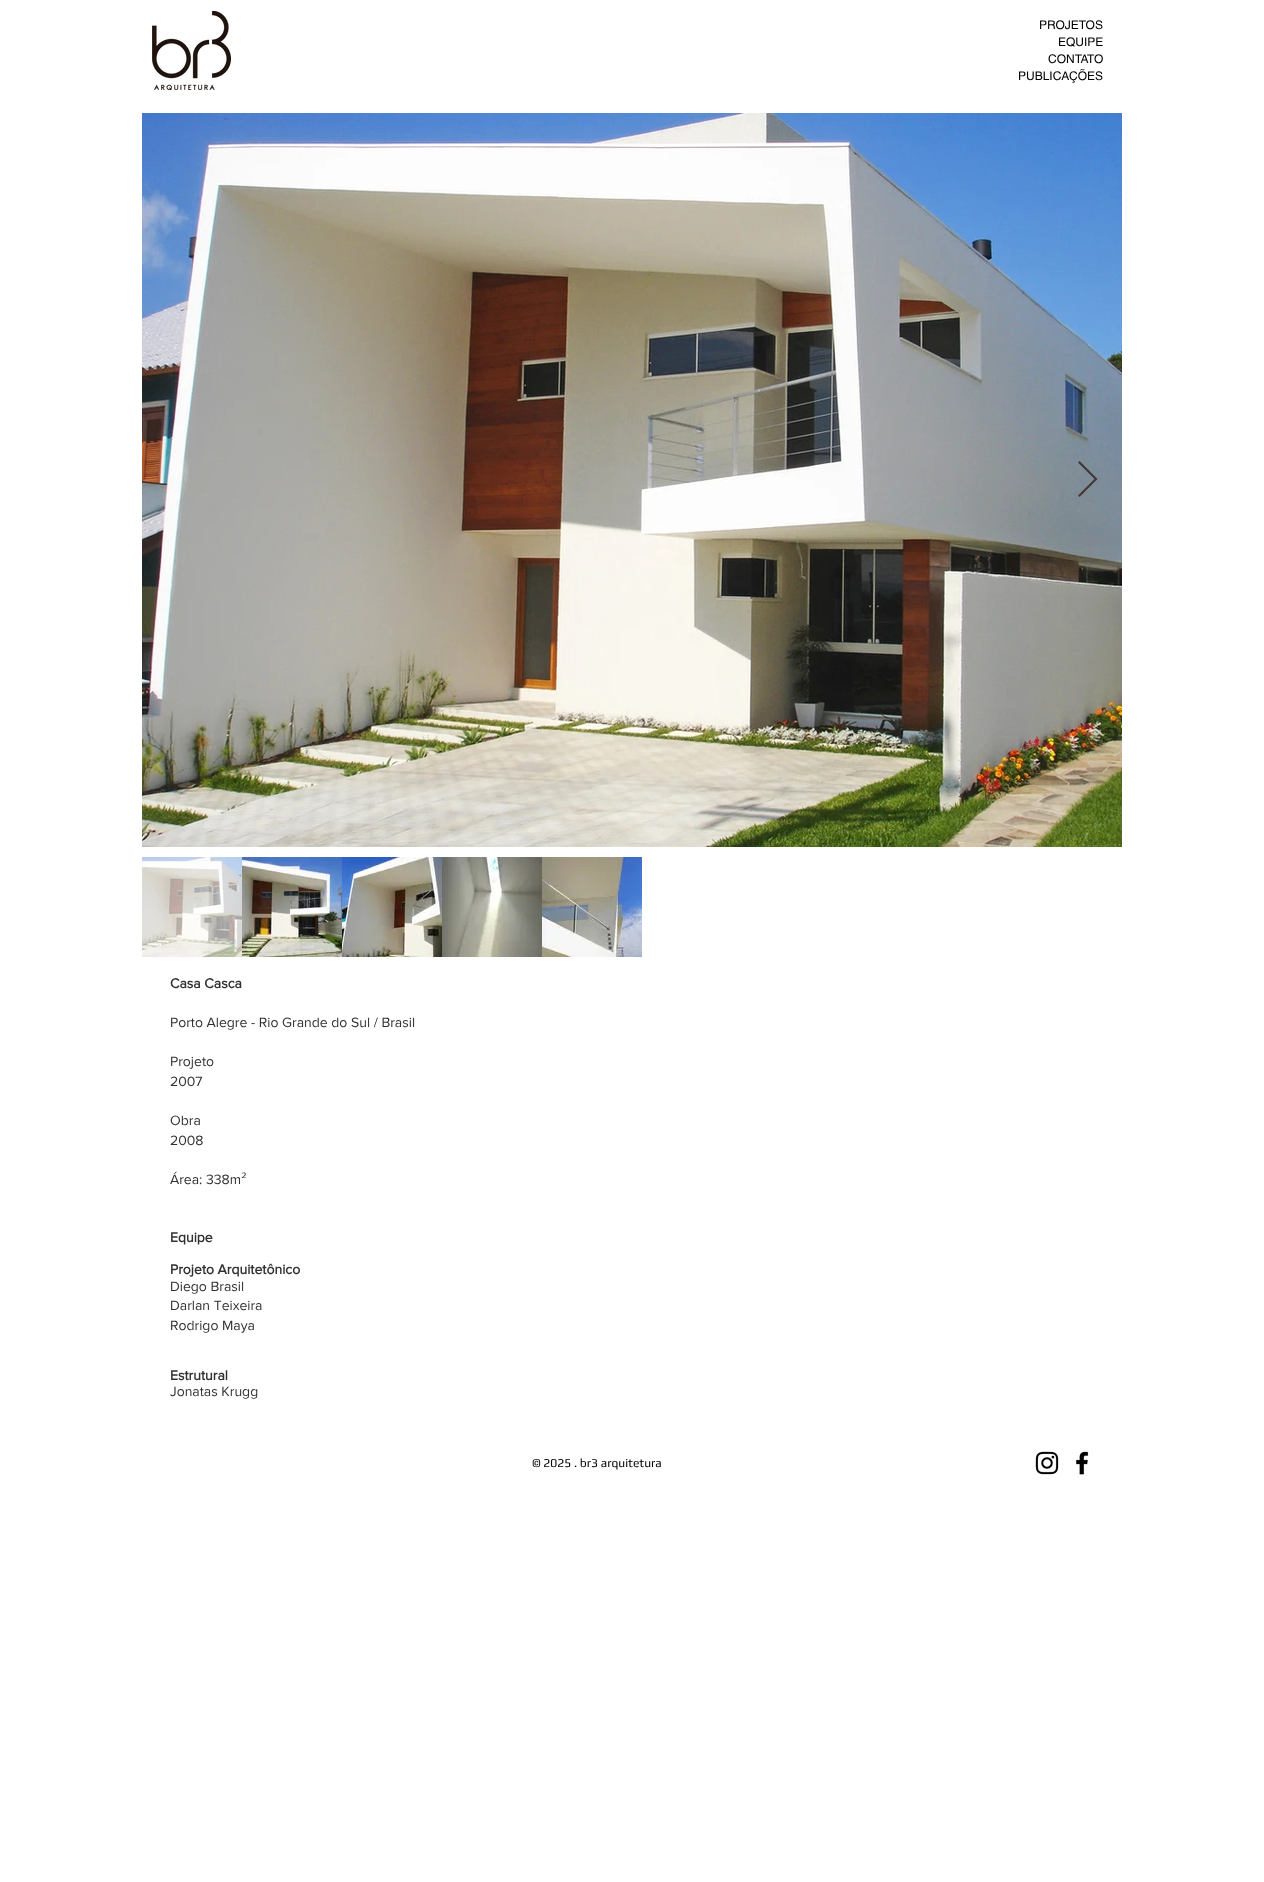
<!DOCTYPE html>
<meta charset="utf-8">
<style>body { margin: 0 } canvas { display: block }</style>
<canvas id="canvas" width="1264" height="1882"></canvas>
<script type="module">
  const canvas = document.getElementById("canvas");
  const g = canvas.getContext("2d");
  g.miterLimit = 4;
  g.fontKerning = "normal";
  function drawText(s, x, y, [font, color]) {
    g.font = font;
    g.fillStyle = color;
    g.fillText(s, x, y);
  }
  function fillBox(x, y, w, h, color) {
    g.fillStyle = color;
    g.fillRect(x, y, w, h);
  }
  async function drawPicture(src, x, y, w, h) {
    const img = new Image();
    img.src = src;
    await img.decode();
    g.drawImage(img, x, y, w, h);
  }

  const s1 = ["12px helvetica", "#000000"];
  const s2 = ["bold 14px 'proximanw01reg'", "#323232"];
  const s3 = ["14px 'proximanw01reg'", "#323232"];
  const s4 = ["12px Play", "#000000"];

  fillBox(0, 0, 1264, 1882, "#FFFFFF");
  await drawPicture("pic1.png", 152, 11, 79, 79);
  drawText("PROJETOS", 1039, 29, s1);
  drawText("EQUIPE", 1058, 46, s1);
  drawText("CONTATO", 1048, 63, s1);
  drawText("PUBLICAÇÕES", 1018, 80, s1);
  await drawPicture("pic2.png", 142, 113, 980, 734);
  g.fillStyle = "rgba(61, 44, 42, 0.9)";
  g.beginPath();
  g.moveTo(1078, 462.5);
  g.lineTo(1079.5, 461);
  g.lineTo(1097.5, 479);
  g.lineTo(1079.5, 497);
  g.lineTo(1078, 495.5);
  g.lineTo(1094.5, 479);
  g.closePath();
  g.fill();
  await drawPicture("pic3.png", 142, 857, 100, 100);
  await drawPicture("pic4.png", 242, 857, 100, 100);
  await drawPicture("pic5.png", 342, 857, 100, 100);
  await drawPicture("pic6.png", 442, 857, 100, 100);
  await drawPicture("pic7.png", 542, 857, 100, 100);
  drawText("Casa Casca", 170, 988, s2);
  drawText("Porto Alegre - Rio Grande do Sul / Brasil", 170, 1027, s3);
  drawText("Projeto", 170, 1066, s3);
  drawText("2007", 170, 1086, s3);
  drawText("Obra", 170, 1125, s3);
  drawText("2008", 170, 1145, s3);
  drawText("Área: 338m²", 170, 1184, s3);
  drawText("Equipe", 170, 1242, s2);
  drawText("Projeto Arquitetônico", 170, 1274, s2);
  drawText("Diego Brasil", 170, 1291, s3);
  drawText("Darlan Teixeira", 170, 1310, s3);
  drawText("Rodrigo Maya", 170, 1330, s3);
  drawText("Estrutural", 170, 1380, s2);
  drawText("Jonatas Krugg", 170, 1396, s3);
  drawText("© 2025 . br3 arquitetura", 532, 1467, s4);
  await drawPicture("pic8.png", 1035, 1451, 24, 24);
  await drawPicture("pic9.png", 1076, 1451, 13, 24);
</script>
